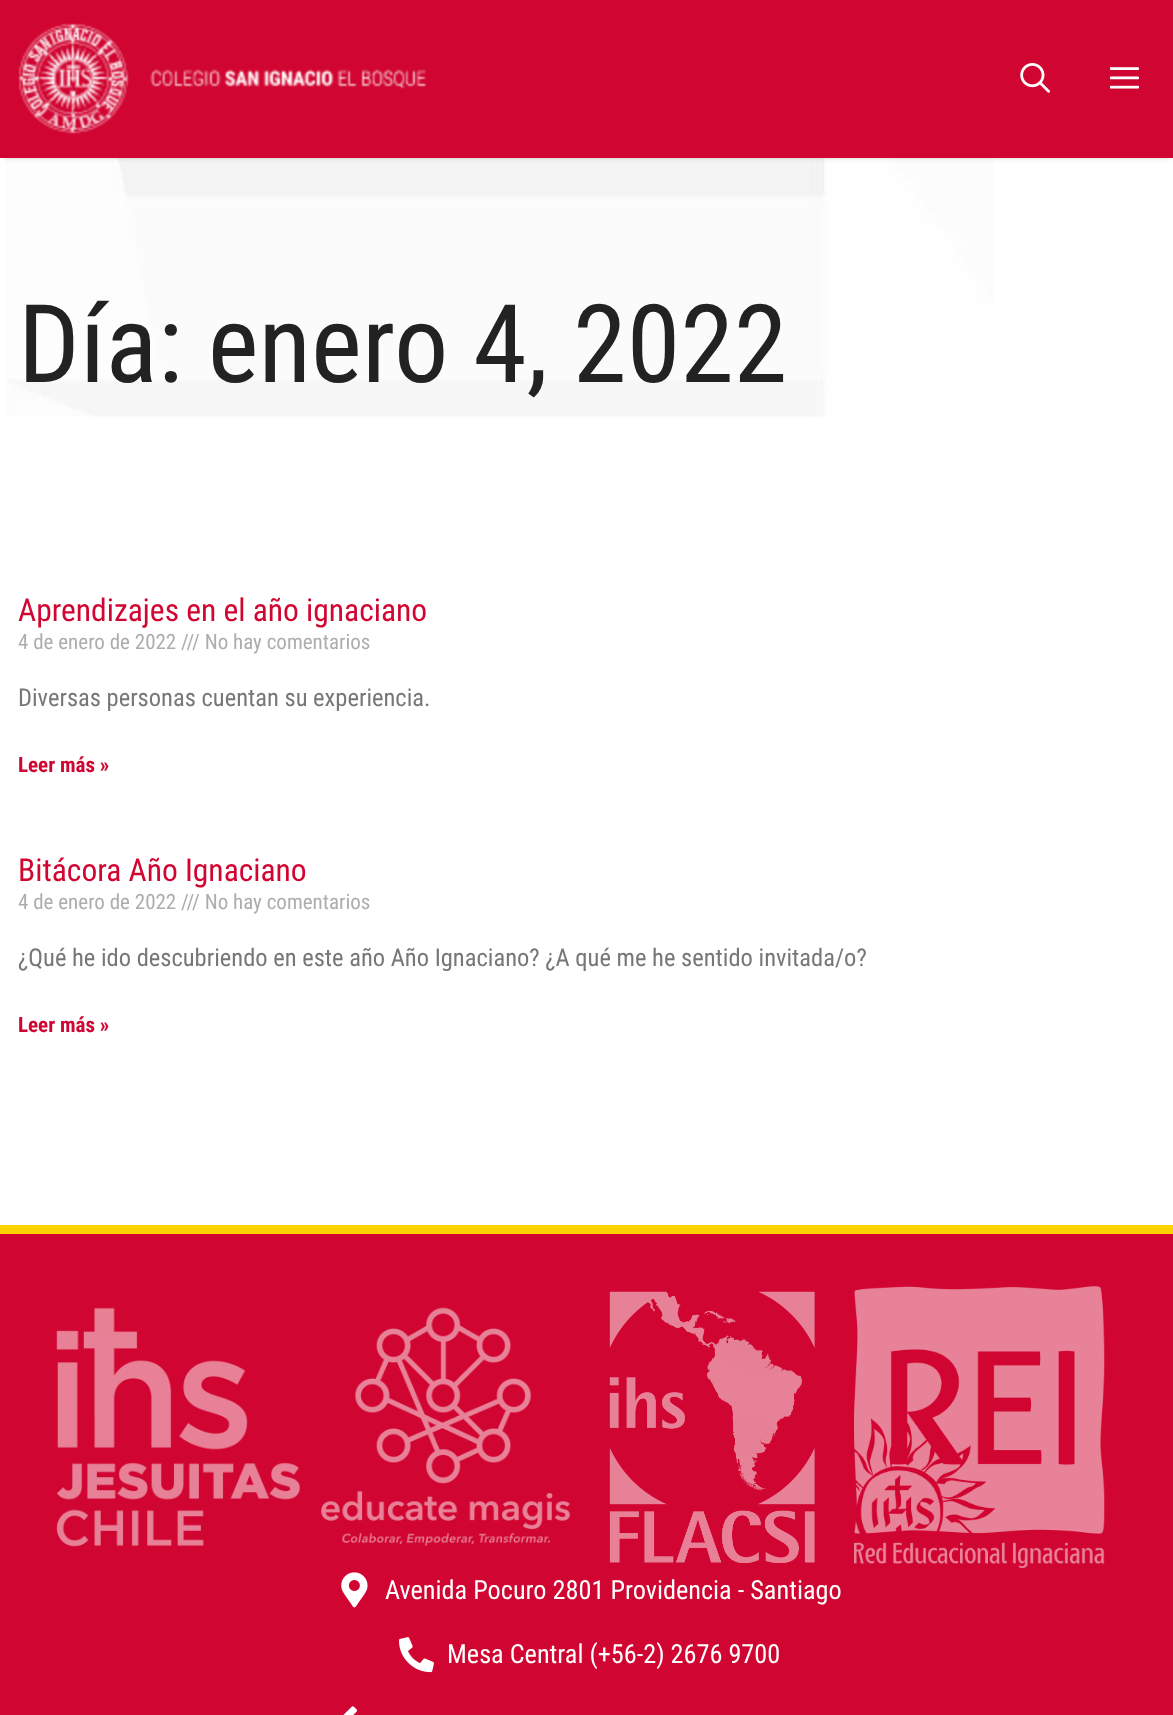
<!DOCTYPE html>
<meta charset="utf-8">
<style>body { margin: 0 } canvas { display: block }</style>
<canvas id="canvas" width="1173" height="1715"></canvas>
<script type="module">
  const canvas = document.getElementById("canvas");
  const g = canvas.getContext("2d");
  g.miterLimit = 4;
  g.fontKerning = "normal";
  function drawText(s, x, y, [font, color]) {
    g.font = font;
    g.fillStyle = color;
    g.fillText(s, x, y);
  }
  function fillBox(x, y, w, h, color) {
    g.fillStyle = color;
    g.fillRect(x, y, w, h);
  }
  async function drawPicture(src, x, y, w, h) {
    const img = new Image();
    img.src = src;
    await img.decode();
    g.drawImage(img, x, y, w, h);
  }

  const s1 = ["108.5px Roboto Condensed", "#222222"];
  const s2 = ["31.5px Roboto Condensed", "#D10531"];
  const s3 = ["21px Roboto Condensed", "#ADADAD"];
  const s4 = ["24.5px Roboto Condensed", "#777777"];
  const s5 = ["bold 21px Roboto Condensed", "#D10531"];
  const s6 = ["26.25px Roboto Condensed", "#FFFFFF"];

  fillBox(0, 0, 1173, 1715, "#FFFFFF");
  await drawPicture("pic4.png", 6, 158, 988, 259);
  g.fillStyle = "rgba(0, 0, 0, 0.2)";
  g.filter = "blur(2px)";
  g.beginPath();
  g.rect(4, 7, 1167, 151);
  g.fill();
  g.filter = "none";
  fillBox(0, 0, 1173, 158, "#D10531");
  await drawPicture("pic1.png", 18, 23, 409, 111);
  await drawPicture("pic2.png", 1020, 63, 30, 30);
  await drawPicture("pic3.png", 1110, 67, 29, 22);
  drawText("Día: enero 4, 2022", 18, 382, s1);
  drawText("Aprendizajes en el año ignaciano", 18, 621, s2);
  drawText("4 de enero de 2022 /// No hay comentarios", 18, 649, s3);
  drawText("Diversas personas cuentan su experiencia.", 18, 706, s4);
  drawText("Leer más »", 18, 772, s5);
  drawText("Bitácora Año Ignaciano", 18, 881, s2);
  drawText("4 de enero de 2022 /// No hay comentarios", 18, 909, s3);
  drawText("¿Qué he ido descubriendo en este año Año Ignaciano? ¿A qué me he sentido invitada/o?", 18, 966, s4);
  drawText("Leer más »", 18, 1032, s5);
  fillBox(0, 1234, 1173, 481, "#D10531");
  fillBox(0, 1225, 1173, 9, "#FFD200");
  await drawPicture("pic5.png", 56, 1307, 244, 240);
  await drawPicture("pic6.png", 321, 1307, 250, 239);
  await drawPicture("pic7.png", 609, 1291, 206, 272);
  await drawPicture("pic8.png", 854, 1286, 251, 282);
  await drawPicture("pic9.png", 341, 1572, 27, 36);
  drawText("Avenida Pocuro 2801 Providencia - Santiago", 385, 1599, s6);
  await drawPicture("pic10.png", 399, 1637, 35, 36);
  drawText("Mesa Central (+56-2) 2676 9700", 447, 1663, s6);
  await drawPicture("pic11.png", 343, 1706, 14, 9);
</script>
